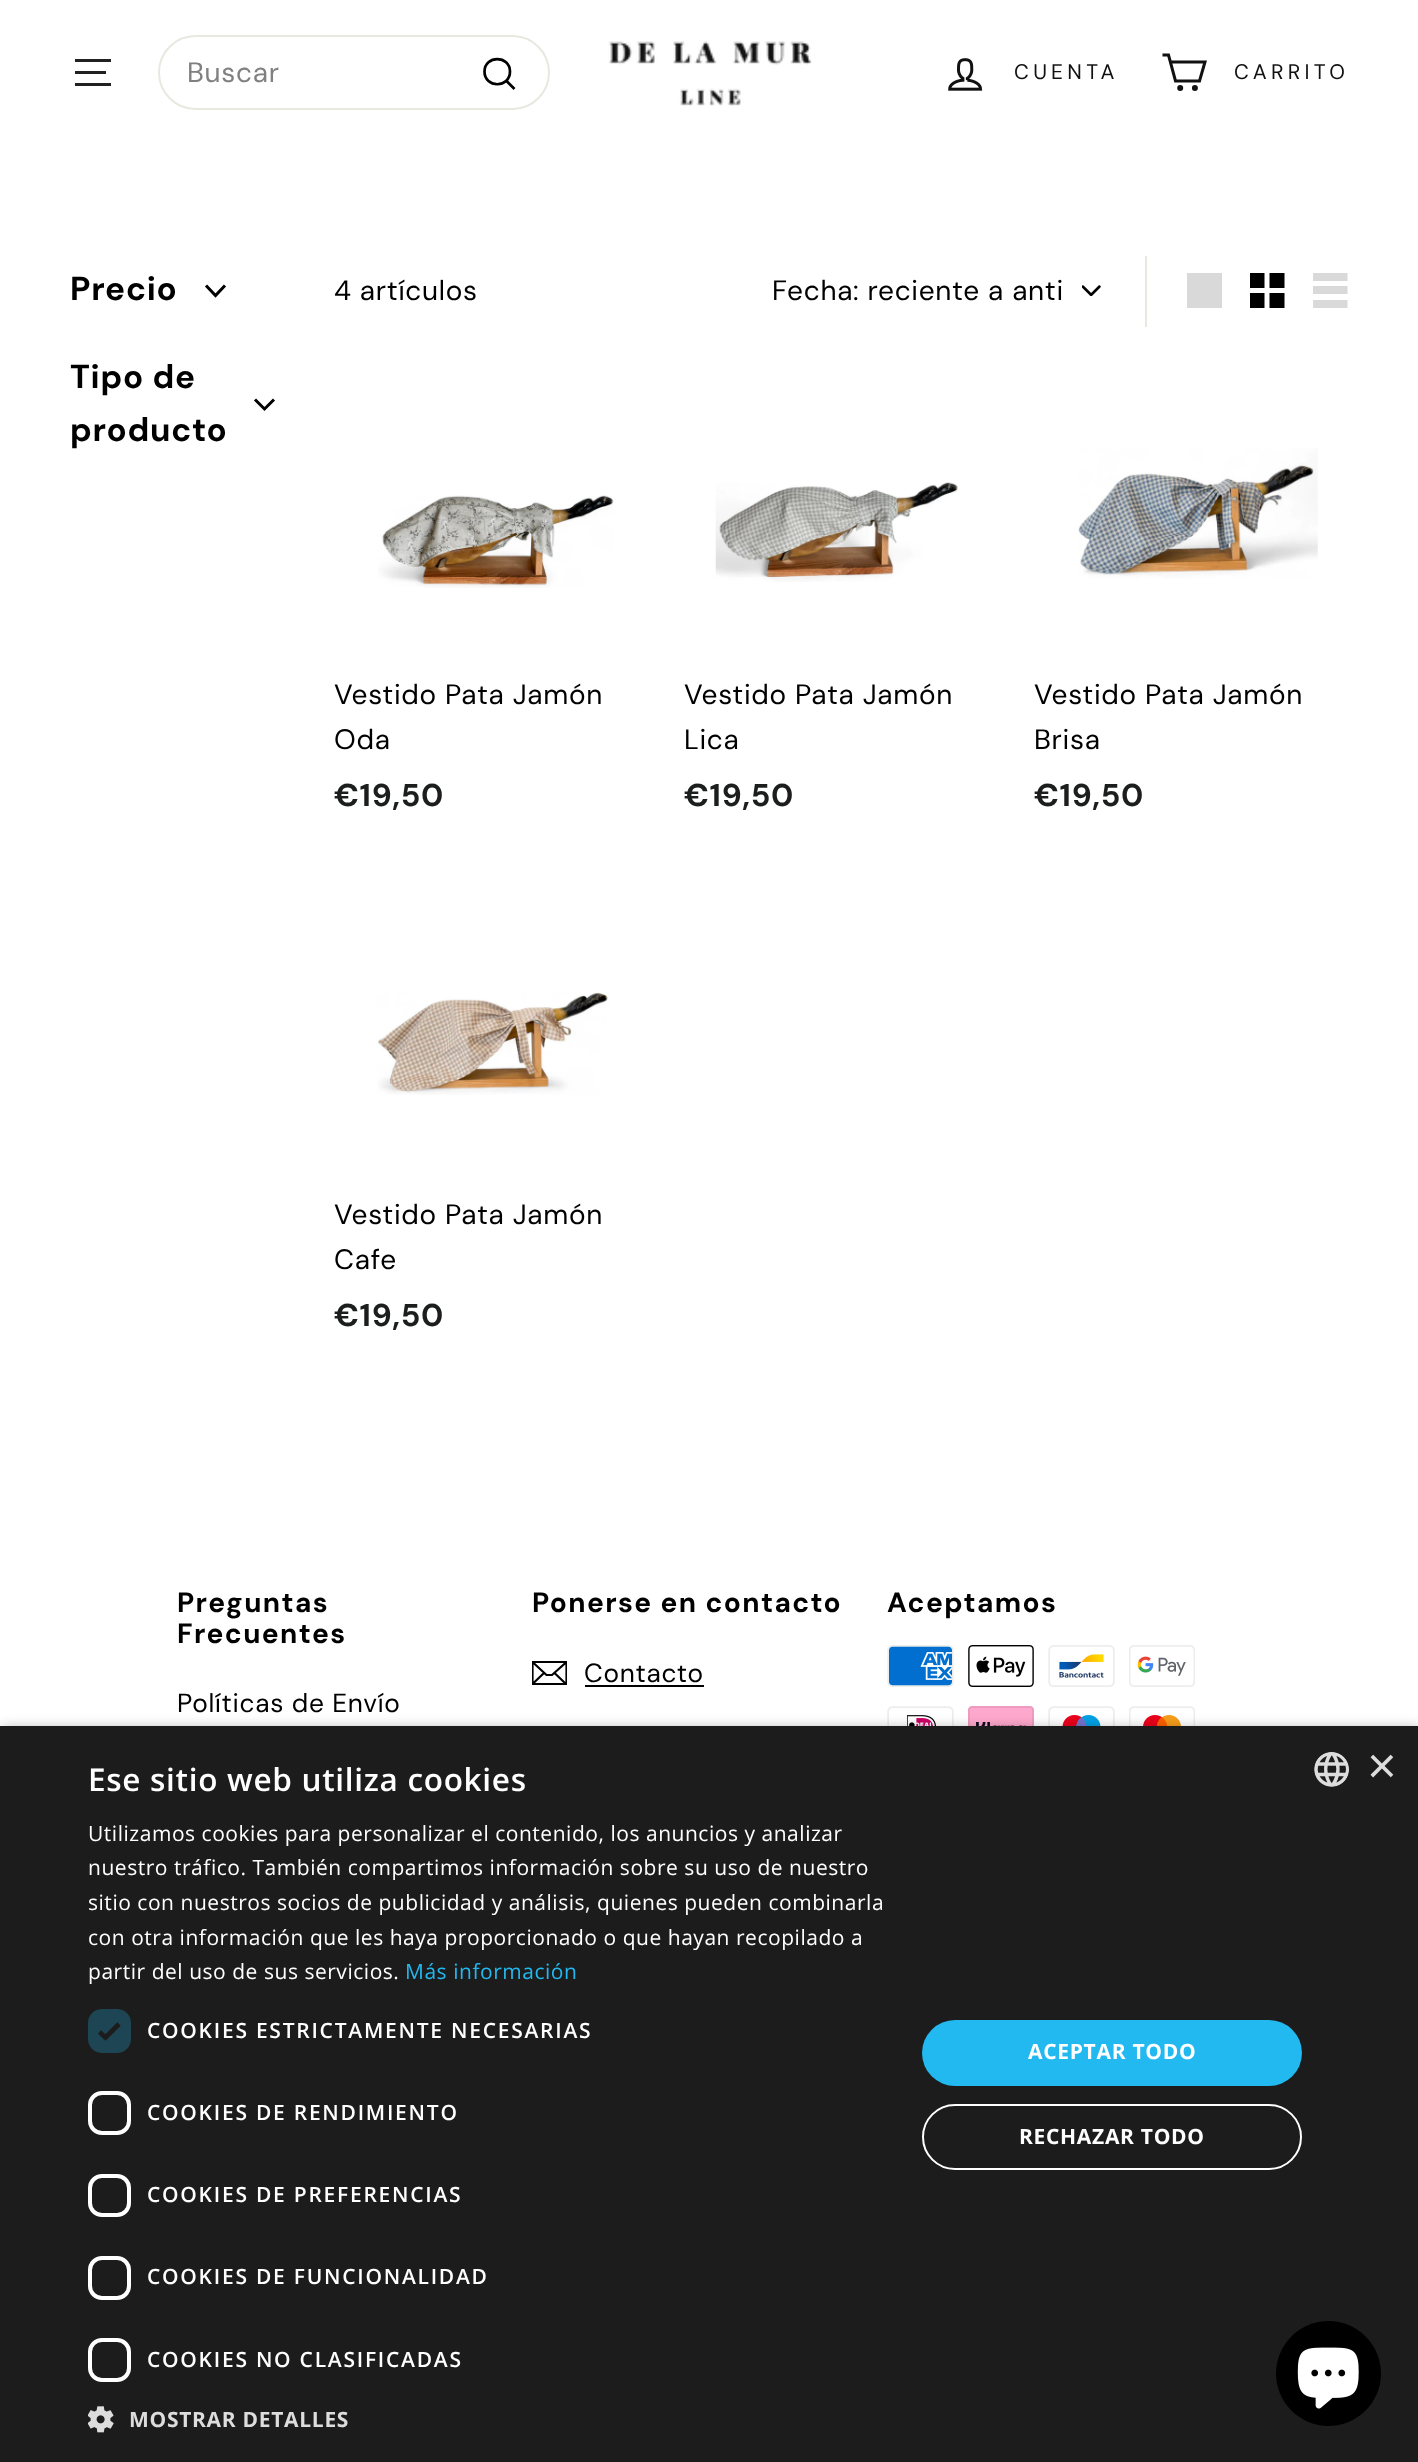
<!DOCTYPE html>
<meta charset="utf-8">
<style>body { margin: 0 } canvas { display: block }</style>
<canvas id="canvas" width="1418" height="2462"></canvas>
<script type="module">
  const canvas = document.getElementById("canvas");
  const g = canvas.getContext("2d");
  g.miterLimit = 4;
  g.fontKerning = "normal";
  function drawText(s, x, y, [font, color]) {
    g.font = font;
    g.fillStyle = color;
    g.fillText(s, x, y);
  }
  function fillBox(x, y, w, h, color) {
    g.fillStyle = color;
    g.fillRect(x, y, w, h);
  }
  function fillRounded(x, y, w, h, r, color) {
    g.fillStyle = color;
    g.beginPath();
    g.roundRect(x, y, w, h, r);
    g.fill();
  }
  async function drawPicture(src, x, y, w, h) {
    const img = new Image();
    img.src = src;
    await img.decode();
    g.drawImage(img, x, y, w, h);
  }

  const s1 = ["28px DM Sans", "#808080"];
  const s2 = ["21px 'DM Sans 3'", "#111111"];
  const s3 = ["bold 33.25px 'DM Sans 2'", "#000000"];
  const s4 = ["28px DM Sans", "#000000"];
  const s5 = ["bold 31.5px 'DM Sans 3'", "#1C1D1D"];
  const s6 = ["bold 28px DM Sans", "#000000"];
  const s7 = ["26.25px 'DM Sans 2'", "#000000"];
  const s8 = ["600 31.5px Open Sans", "#FFFFFF"];
  const s9 = ["21px Open Sans", "#FFFFFF"];
  const s10 = ["21px Open Sans", "#22B8F0"];
  const s11 = ["600 21px Open Sans", "#FFFFFF"];
  const s12 = ["bold 21px Open Sans", "#DDDDDD"];
  const s13 = ["bold 21px Open Sans", "#FFFFFF"];
  const s14 = ["51px Liberation Sans", "#DDDDDD"];

  fillBox(0, 0, 1418, 2462, "#FFFFFF");
  fillBox(75, 59, 36, 3, "#212121");
  fillBox(75, 71, 31, 3, "#212121");
  fillBox(75, 83, 36, 3, "#212121");
  g.beginPath();
  g.roundRect(159, 36, 390, 73, 36.5);
  g.strokeStyle = "#E8E8E1";
  g.lineWidth = 2;
  g.stroke();
  g.letterSpacing = "0.7px";
  drawText("Buscar", 187, 82, s1);
  g.beginPath();
  g.moveTo(510, 71.5);
  g.bezierCurveTo(510, 88.5, 484.5, 88.5, 484.5, 71.5);
  g.bezierCurveTo(484.5, 55, 510, 55, 510, 71.5);
  g.moveTo(514.5, 89);
  g.lineTo(506.5, 81);
  g.strokeStyle = "#000000";
  g.lineWidth = 2.7;
  g.stroke();
  await drawPicture("pic1.png", 608, 41, 204, 65);
  await drawPicture("pic2.png", 948, 58, 35, 33);
  g.letterSpacing = "4.25px";
  drawText("CUENTA", 1014, 79, s2);
  g.beginPath();
  g.moveTo(1170.5, 62);
  g.lineTo(1205, 62);
  g.lineTo(1199.5, 81);
  g.lineTo(1175.5, 81);
  g.lineTo(1168.5, 55);
  g.lineTo(1162.5, 55);
  g.strokeStyle = "#111111";
  g.lineWidth = 3;
  g.stroke();
  g.beginPath();
  g.arc(1180.2, 88.1, 1.5, 0, Math.PI * 2);
  g.stroke();
  g.beginPath();
  g.arc(1194.9, 88.1, 1.5, 0, Math.PI * 2);
  g.stroke();
  drawText("CARRITO", 1234, 79, s2);
  g.letterSpacing = "0.75px";
  drawText("Precio", 70, 300, s3);
  g.beginPath();
  g.moveTo(206, 285.5);
  g.lineTo(215.5, 295.5);
  g.lineTo(225, 285.5);
  g.strokeStyle = "#000000";
  g.stroke();
  drawText("Tipo de", 70, 388, s3);
  drawText("producto", 70, 441, s3);
  g.beginPath();
  g.moveTo(255, 399.5);
  g.lineTo(264.5, 409);
  g.lineTo(274, 399.5);
  g.stroke();
  g.letterSpacing = "0.7px";
  drawText("4 artículos", 334, 300, s4);
  fillBox(1145, 256, 2, 71, "#E8E8E1");
  await drawPicture("pic3.png", 1082, 285, 19, 11);
  drawText("Fecha: reciente a anti", 772, 300, s4);
  fillBox(1187, 273, 35, 35, "#D9D9D9");
  await drawPicture("pic4.png", 1250, 273, 35, 35);
  g.save();
  g.beginPath();
  g.rect(1313, 273, 35, 35);
  g.clip();
  g.beginPath();
  g.moveTo(1312.5, 273);
  g.lineTo(1347.5, 273);
  g.lineTo(1347.5, 281);
  g.lineTo(1312.5, 281);
  g.closePath();
  g.moveTo(1312.5, 286);
  g.lineTo(1347.5, 286);
  g.lineTo(1347.5, 294);
  g.lineTo(1312.5, 294);
  g.closePath();
  g.moveTo(1312.5, 300);
  g.lineTo(1347.5, 300);
  g.lineTo(1347.5, 308);
  g.lineTo(1312.5, 308);
  g.closePath();
  g.fill();
  g.restore();
  await drawPicture("pic5.png", 378, 495, 236, 93);
  drawText("Vestido Pata Jamón", 334, 704, s4);
  drawText("Oda", 334, 749, s4);
  drawText("€19,50", 334, 806, s5);
  await drawPicture("pic6.png", 715, 482, 243, 100);
  drawText("Vestido Pata Jamón", 684, 704, s4);
  drawText("Lica", 684, 749, s4);
  drawText("€19,50", 684, 806, s5);
  await drawPicture("pic7.png", 1078, 448, 240, 131);
  drawText("Vestido Pata Jamón", 1034, 704, s4);
  drawText("Brisa", 1034, 749, s4);
  drawText("€19,50", 1034, 806, s5);
  await drawPicture("pic8.png", 377, 992, 232, 103);
  drawText("Vestido Pata Jamón", 334, 1224, s4);
  drawText("Cafe", 334, 1269, s4);
  drawText("€19,50", 334, 1326, s5);
  g.letterSpacing = "1.4px";
  drawText("Preguntas", 177, 1612, s6);
  drawText("Frecuentes", 177, 1643, s6);
  g.letterSpacing = "0.7px";
  drawText("Políticas de Envío", 177, 1712, s7);
  g.letterSpacing = "1.4px";
  drawText("Ponerse en contacto", 532, 1612, s6);
  g.save();
  g.beginPath();
  g.rect(532, 1656, 35, 35);
  g.clip();
  g.beginPath();
  g.moveTo(566.5, 1684);
  g.lineTo(532.5, 1684);
  g.lineTo(532.5, 1662);
  g.lineTo(566.5, 1662);
  g.closePath();
  g.moveTo(532.5, 1662);
  g.lineTo(546.5, 1675);
  g.lineTo(552, 1675);
  g.lineTo(566.5, 1662);
  g.moveTo(544, 1673);
  g.lineTo(533, 1683.5);
  g.moveTo(566, 1684);
  g.lineTo(554.5, 1673);
  g.lineWidth = 2.2;
  g.stroke();
  g.restore();
  g.letterSpacing = "0.7px";
  drawText("Contacto", 584, 1682, s7);
  fillBox(585, 1685, 119, 2, "#000000");
  g.letterSpacing = "1.4px";
  drawText("Aceptamos", 887, 1612, s6);
  await drawPicture("pic9.png", 887, 1645, 67, 42);
  await drawPicture("pic10.png", 968, 1645, 66, 42);
  await drawPicture("pic11.png", 1048, 1645, 67, 42);
  await drawPicture("pic12.png", 1129, 1645, 66, 42);
  await drawPicture("pic13.png", 887, 1706, 67, 20);
  await drawPicture("pic14.png", 968, 1706, 66, 20);
  await drawPicture("pic15.png", 1048, 1706, 67, 20);
  await drawPicture("pic16.png", 1129, 1706, 66, 20);
  g.fillStyle = "rgba(0, 0, 0, 0.35)";
  g.filter = "blur(7px)";
  g.beginPath();
  g.rect(2, 1729, 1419, 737);
  g.fill();
  g.filter = "none";
  fillBox(0, 1726, 1418, 736, "#1C1C1C");
  g.letterSpacing = "0.7px";
  drawText("Ese sitio web utiliza cookies", 88, 1791, s8);
  g.letterSpacing = "0.53px";
  drawText("Utilizamos cookies para personalizar el contenido, los anuncios y analizar", 88, 1841, s9);
  drawText("nuestro tráfico. También compartimos información sobre su uso de nuestro", 88, 1875, s9);
  drawText("sitio con nuestros socios de publicidad y análisis, quienes pueden combinarla", 88, 1910, s9);
  drawText("con otra información que les haya proporcionado o que hayan recopilado a", 88, 1945, s9);
  drawText("partir del uso de sus servicios.", 88, 1979, s9);
  drawText("Más información", 405, 1979, s10);
  fillRounded(88, 2009, 43, 44, 14, "#1E4553");
  g.beginPath();
  g.moveTo(99.5, 2032);
  g.lineTo(105.5, 2037.5);
  g.lineTo(119, 2024);
  g.strokeStyle = "#1C1C1C";
  g.lineWidth = 4.6;
  g.stroke();
  g.letterSpacing = "1.75px";
  drawText("COOKIES ESTRICTAMENTE NECESARIAS", 147, 2038, s11);
  g.beginPath();
  g.roundRect(90, 2093, 39, 40, 12);
  g.strokeStyle = "#FFFFFF";
  g.lineWidth = 4;
  g.stroke();
  drawText("COOKIES DE RENDIMIENTO", 147, 2120, s11);
  g.beginPath();
  g.roundRect(90, 2176, 39, 39, 12);
  g.stroke();
  drawText("COOKIES DE PREFERENCIAS", 147, 2202, s11);
  g.beginPath();
  g.roundRect(90, 2258, 39, 40, 12);
  g.stroke();
  drawText("COOKIES DE FUNCIONALIDAD", 147, 2284, s11);
  g.beginPath();
  g.roundRect(90, 2340, 39, 40, 12);
  g.stroke();
  drawText("COOKIES NO CLASIFICADAS", 147, 2367, s11);
  await drawPicture("pic17.png", 88, 2406, 26, 27);
  g.letterSpacing = "0.7px";
  drawText("MOSTRAR DETALLES", 129, 2427, s12);
  fillRounded(922, 2020, 380, 66, 33, "#22B8F0");
  drawText("ACEPTAR TODO", 1028, 2059, s13);
  g.beginPath();
  g.roundRect(923, 2105, 378, 64, 32);
  g.lineWidth = 2;
  g.stroke();
  drawText("RECHAZAR TODO", 1019, 2144, s13);
  await drawPicture("pic18.png", 1314, 1752, 35, 35);
  g.letterSpacing = "0px";
  drawText("×", 1367, 1783, s14);
  g.fillStyle = "#000000";
  g.beginPath();
  g.arc(1328.5, 2373.5, 52.5, 0, Math.PI * 2);
  g.fill();
  await drawPicture("pic19.png", 1297, 2347, 62, 62);
</script>
